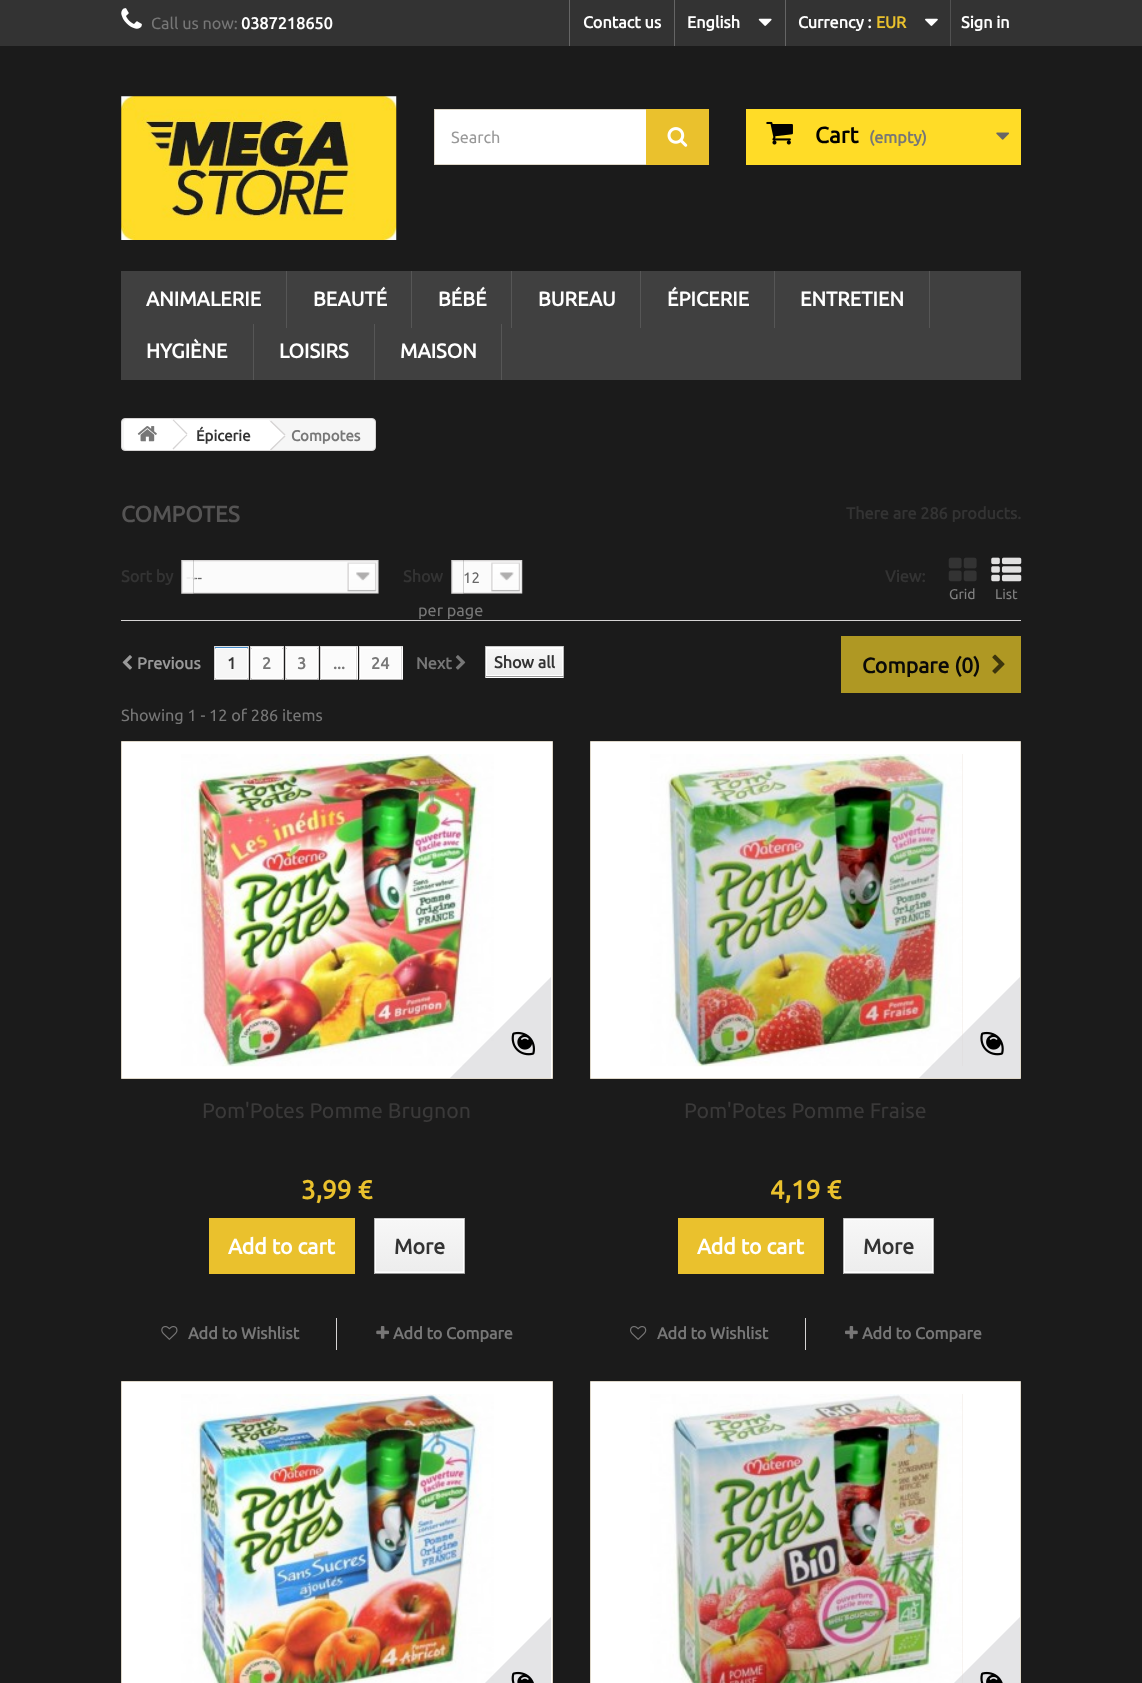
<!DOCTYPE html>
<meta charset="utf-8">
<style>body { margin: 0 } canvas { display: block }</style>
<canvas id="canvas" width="1142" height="1683"></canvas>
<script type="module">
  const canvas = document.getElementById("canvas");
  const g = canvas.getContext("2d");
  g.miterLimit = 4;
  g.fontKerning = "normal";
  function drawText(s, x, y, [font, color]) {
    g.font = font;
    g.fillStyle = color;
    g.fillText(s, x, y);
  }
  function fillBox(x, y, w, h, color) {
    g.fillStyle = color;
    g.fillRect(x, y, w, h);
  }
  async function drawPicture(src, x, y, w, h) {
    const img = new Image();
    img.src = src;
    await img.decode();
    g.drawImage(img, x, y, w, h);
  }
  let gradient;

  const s1 = ["16.25px Ubuntu", "#777777"];
  const s2 = ["bold 16.25px Ubuntu", "#FFFFFF"];
  const s3 = ["bold 16.25px Ubuntu", "#EAC12D"];
  const s4 = ["16.25px Ubuntu", "#999999"];
  const s5 = ["bold 22.5px Ubuntu", "#000000"];
  const s6 = ["bold 16.25px Ubuntu", "#777777"];
  const s7 = ["bold 20px Ubuntu", "#FFFFFF"];
  const s8 = ["bold 15px Ubuntu", "#333333"];
  const s9 = ["bold 15px Ubuntu", "#777777"];
  const s10 = ["bold 22.5px Ubuntu", "#555454"];
  const s11 = ["bold 16.25px Ubuntu", "#333333"];
  const s12 = ["15px Ubuntu", "#666666"];
  const s13 = ["15px Liberation Sans", "#E6E6E6"];
  const s14 = ["14px Ubuntu", "#808080"];
  const s15 = ["bold 16.25px Ubuntu", "#999999"];
  const s16 = ["bold 21.25px Ubuntu", "#090909"];
  const s17 = ["21.25px Ubuntu", "#3A3939"];
  const s18 = ["bold 26px Ubuntu", "#EAC12D"];
  const s19 = ["bold 21.25px Ubuntu", "#FFFFFF"];
  const s20 = ["bold 21.25px Ubuntu", "#333333"];

  fillBox(0, 0, 1142, 1683, "#1B1B1B");
  fillBox(0, 0, 1142, 46, "#333333");
  await drawPicture("pic1.png", 121, 8, 21, 21);
  drawText("Call us now:", 151, 29, s1);
  drawText("0387218650", 241, 29, s2);
  fillBox(569, 0, 1, 46, "#656565");
  drawText("Contact us", 583, 28, s2);
  fillBox(674, 0, 1, 46, "#656565");
  drawText("English", 687, 28, s2);
  await drawPicture("pic2.png", 758, 18, 14, 8);
  fillBox(785, 0, 1, 46, "#656565");
  drawText("Currency :", 798, 28, s2);
  drawText("EUR", 876, 28, s3);
  await drawPicture("pic3.png", 925, 18, 13, 8);
  fillBox(950, 0, 1, 46, "#515151");
  drawText("Sign in", 961, 28, s2);
  await drawPicture("pic4.png", 121, 96, 276, 144);
  fillBox(435, 110, 211, 54, "#FFFFFF");
  g.strokeStyle = "#DFD8CA";
  g.strokeRect(434.5, 109.5, 274, 55);
  drawText("Search", 451, 143, s4);
  fillBox(646, 109, 63, 56, "#EAC12D");
  await drawPicture("pic5.png", 667, 127, 21, 20);
  fillBox(746, 109, 275, 56, "#FFDC27");
  await drawPicture("pic6.png", 766, 121, 27, 24);
  drawText("Cart", 815, 143, s5);
  drawText("(empty)", 869, 143, s6);
  await drawPicture("pic7.png", 996, 132, 14, 8);
  fillBox(121, 271, 900, 109, "#404040");
  fillBox(286, 271, 1, 57, "#565656");
  drawText("ANIMALERIE", 146, 306, s7);
  fillBox(411, 271, 1, 57, "#565656");
  drawText("BEAUTÉ", 313, 306, s7);
  fillBox(511, 271, 1, 57, "#565656");
  drawText("BÉBÉ", 438, 306, s7);
  fillBox(640, 271, 1, 57, "#565656");
  drawText("BUREAU", 538, 306, s7);
  fillBox(774, 271, 1, 57, "#565656");
  drawText("ÉPICERIE", 667, 306, s7);
  fillBox(929, 271, 1, 57, "#565656");
  drawText("ENTRETIEN", 800, 306, s7);
  fillBox(253, 324, 1, 56, "#565656");
  drawText("HYGIÈNE", 146, 358, s7);
  fillBox(374, 324, 1, 56, "#565656");
  drawText("LOISIRS", 279, 358, s7);
  fillBox(501, 324, 1, 56, "#565656");
  drawText("MAISON", 400, 358, s7);
  g.fillStyle = "#F6F6F6";
  g.beginPath();
  g.roundRect(121.5, 418.5, 254, 32, 3.5);
  g.fill();
  g.strokeStyle = "#D6D4D4";
  g.stroke();
  g.fillStyle = "#FFFFFF";
  g.beginPath();
  g.roundRect(124, 419, 47, 31, [4, 0, 0, 4]);
  g.fill();
  await drawPicture("pic8.png", 137, 426, 20, 16);
  fillBox(171, 420, 98, 30, "#FFFFFF");
  g.beginPath();
  g.moveTo(174.5, 420);
  g.lineTo(186.5, 432.5);
  g.bezierCurveTo(187.5, 433.5, 187.5, 435, 186.5, 436);
  g.lineTo(174.5, 448.5);
  g.bezierCurveTo(173.5, 449.5, 171.5, 449.5, 170.5, 448.5);
  g.lineTo(158.5, 436);
  g.bezierCurveTo(157.5, 435, 157.5, 433.5, 158.5, 432.5);
  g.lineTo(170.5, 420);
  g.bezierCurveTo(171.5, 419, 173.5, 419, 174.5, 420);
  g.closePath();
  g.fill();
  g.fillStyle = "#D6D4D4";
  g.beginPath();
  g.moveTo(173.5, 419.5);
  g.lineTo(187.5, 433.5);
  g.lineTo(186.5, 434.5);
  g.lineTo(172.5, 420);
  g.closePath();
  g.fill();
  g.beginPath();
  g.moveTo(186.5, 434.5);
  g.lineTo(187.5, 435);
  g.lineTo(173.5, 449.5);
  g.lineTo(172.5, 448.5);
  g.closePath();
  g.fill();
  drawText("Épicerie", 196, 441, s8);
  g.fillStyle = "#FFFFFF";
  g.beginPath();
  g.moveTo(272, 421.5);
  g.lineTo(282.5, 432);
  g.bezierCurveTo(286, 435.5, 286, 436, 282.5, 439.5);
  g.lineTo(274, 447.5);
  g.bezierCurveTo(271.5, 450, 272, 450, 269, 450);
  g.lineTo(256, 437.5);
  g.bezierCurveTo(254, 435.5, 256.5, 433.5, 258, 432);
  g.lineTo(266.5, 423.5);
  g.bezierCurveTo(268, 422, 270, 419.5, 272, 421.5);
  g.closePath();
  g.fill();
  g.fillStyle = "#D6D4D4";
  g.beginPath();
  g.moveTo(271, 420.5);
  g.lineTo(285.5, 434.5);
  g.lineTo(284.5, 435.5);
  g.lineTo(270, 421.5);
  g.closePath();
  g.fill();
  g.beginPath();
  g.moveTo(284.5, 435.5);
  g.lineTo(285.5, 436.5);
  g.lineTo(271, 450.5);
  g.lineTo(270, 449.5);
  g.closePath();
  g.fill();
  drawText("Compotes", 291, 441, s9);
  drawText("COMPOTES", 121, 522, s10);
  drawText("There are 286 products.", 846, 519, s11);
  fillBox(121, 620, 900, 1, "#D6D4D4");
  drawText("Sort by", 121, 582, s11);
  await drawPicture("pic9.png", 181, 560, 13, 34);
  await drawPicture("pic10.png", 193, 560, 186, 34);
  drawText("--", 193, 583, s12);
  drawText("--", 186, 582, s13);
  drawText("Show", 403, 582, s11);
  await drawPicture("pic9.png", 451, 560, 13, 34);
  await drawPicture("pic11.png", 463, 560, 60, 34);
  drawText("12", 463, 583, s12);
  drawText("per page", 418, 616, s1);
  drawText("View:", 885, 582, s11);
  await drawPicture("pic12.png", 948, 557, 29, 25);
  drawText("Grid", 949, 599, s14);
  await drawPicture("pic13.png", 991, 557, 31, 25);
  drawText("List", 995, 599, s14);
  await drawPicture("pic14.png", 122, 655, 10, 15);
  drawText("Previous", 137, 669, s15);
  fillBox(215, 647, 33, 1, "#428BCA");
  fillBox(214, 646, 35, 1, "#DFDEDE");
  fillBox(248, 646, 1, 34, "#D2D0D0");
  fillBox(214, 679, 35, 1, "#B0AFAF");
  fillBox(214, 646, 1, 34, "#D2D0D0");
  g.fillStyle = "#F6F6F6";
  g.beginPath();
  g.rect(215.5, 648.5, 32, 30);
  g.fill();
  g.strokeStyle = "#FFFFFF";
  g.stroke();
  drawText("1", 227, 669, s11);
  fillBox(251, 647, 32, 1, "#FFFFFF");
  fillBox(250, 646, 34, 1, "#DFDEDE");
  fillBox(283, 646, 1, 34, "#D2D0D0");
  fillBox(250, 679, 34, 1, "#B0AFAF");
  fillBox(250, 646, 1, 34, "#D2D0D0");
  g.fillStyle = "#FBFBFB";
  g.beginPath();
  g.rect(251.5, 648.5, 31, 30);
  g.fill();
  g.stroke();
  drawText("2", 262, 669, s6);
  fillBox(286, 647, 32, 1, "#FFFFFF");
  fillBox(285, 646, 34, 1, "#DFDEDE");
  fillBox(318, 646, 1, 34, "#D2D0D0");
  fillBox(285, 679, 34, 1, "#B0AFAF");
  fillBox(285, 646, 1, 34, "#D2D0D0");
  g.fillStyle = "#FBFBFB";
  g.beginPath();
  g.rect(286.5, 648.5, 31, 30);
  g.fill();
  g.stroke();
  drawText("3", 297, 669, s6);
  fillBox(321, 647, 37, 32, "#FFFFFF");
  fillBox(320, 646, 38, 1, "#DFDEDE");
  fillBox(356, 646, 1, 34, "#D2D0D0");
  fillBox(320, 679, 38, 1, "#B0AFAF");
  fillBox(320, 646, 1, 34, "#D2D0D0");
  fillBox(322, 649, 33, 29, "#FBFBFB");
  await drawPicture("pic15.png", 356, 649, 1, 30);
  drawText("...", 333, 669, s6);
  fillBox(360, 647, 43, 32, "#FFFFFF");
  fillBox(359, 646, 44, 1, "#DFDEDE");
  fillBox(401, 646, 1, 34, "#D2D0D0");
  fillBox(359, 679, 44, 1, "#B0AFAF");
  fillBox(359, 646, 1, 34, "#D2D0D0");
  fillBox(361, 649, 39, 29, "#FBFBFB");
  await drawPicture("pic15.png", 401, 649, 1, 30);
  drawText("24", 371, 669, s6);
  drawText("Next", 416, 669, s6);
  await drawPicture("pic16.png", 455, 655, 11, 15);
  fillBox(486, 647, 77, 31, "#FFFFFF");
  fillBox(485, 646, 79, 1, "#CACACA");
  fillBox(563, 646, 1, 32, "#B7B7B7");
  fillBox(485, 676, 79, 1, "#9A9A9A");
  fillBox(485, 646, 1, 32, "#B7B7B7");
  gradient = g.createLinearGradient(524, 649, 524, 675);
  gradient.addColorStop(0, "#F7F7F7");
  gradient.addColorStop(1, "#EDEDED");
  g.fillStyle = gradient;
  g.fillRect(487, 649, 75, 26);
  drawText("Show all", 494, 668, s11);
  fillBox(841, 636, 180, 57, "#AF9823");
  drawText("Compare (0)", 862, 673, s16);
  await drawPicture("pic17.png", 992, 654, 13, 20);
  drawText("Showing 1 - 12 of 286 items", 121, 721, s1);
  g.fillStyle = "#FFFFFF";
  g.beginPath();
  g.rect(121.5, 741.5, 431, 337);
  g.fill();
  g.strokeStyle = "#DFD8CA";
  g.stroke();
  await drawPicture("pic18.png", 181, 754, 313, 313);
  g.save();
  g.beginPath();
  g.rect(283, 884, 268, 194);
  g.clip();
  g.fillStyle = "rgba(208, 208, 211, 0.57)";
  g.beginPath();
  g.moveTo(558, 970);
  g.lineTo(633, 1045);
  g.lineTo(518, 1160);
  g.lineTo(443, 1085);
  g.closePath();
  g.fill();
  g.restore();
  await drawPicture("pic19.png", 511, 1031, 24, 25);
  drawText("Pom'Potes Pomme Brugnon", 202, 1118, s17);
  drawText("3,99 €", 301, 1199, s18);
  g.strokeStyle = "#EAC12D";
  g.strokeRect(209.5, 1218.5, 145, 55);
  fillBox(210, 1219, 144, 54, "#EAC12D");
  drawText("Add to cart", 228, 1254, s19);
  fillBox(374, 1218, 91, 1, "#CACACA");
  fillBox(464, 1218, 1, 56, "#B7B7B7");
  fillBox(374, 1273, 91, 1, "#9A9A9A");
  fillBox(374, 1218, 1, 56, "#B7B7B7");
  fillBox(376, 1271, 87, 1, "#F7F7F7");
  gradient = g.createLinearGradient(419, 1220, 419, 1271);
  gradient.addColorStop(0, "#F7F7F7");
  gradient.addColorStop(1, "#EDEDED");
  g.fillStyle = gradient;
  g.fillRect(376, 1220, 87, 51);
  g.strokeStyle = "#FFFFFF";
  g.strokeRect(375.5, 1219.5, 88, 53);
  drawText("More", 394, 1254, s20);
  fillBox(336, 1318, 1, 32, "#D6D4D4");
  await drawPicture("pic20.png", 161, 1326, 17, 14);
  drawText("Add to Wishlist", 188, 1339, s6);
  await drawPicture("pic21.png", 376, 1326, 13, 13);
  drawText("Add to Compare", 393, 1339, s6);
  g.fillStyle = "#FFFFFF";
  g.beginPath();
  g.rect(590.5, 741.5, 430, 337);
  g.fill();
  g.strokeStyle = "#DFD8CA";
  g.stroke();
  fillBox(962, 754, 1, 312, "#F1E8E3");
  await drawPicture("pic22.png", 650, 754, 313, 313);
  g.save();
  g.beginPath();
  g.rect(751, 884, 269, 194);
  g.clip();
  g.fillStyle = "rgba(208, 208, 211, 0.57)";
  g.beginPath();
  g.moveTo(1027, 970);
  g.lineTo(1102, 1045);
  g.lineTo(987, 1160);
  g.lineTo(912, 1085);
  g.closePath();
  g.fill();
  g.restore();
  await drawPicture("pic23.png", 980, 1031, 24, 25);
  drawText("Pom'Potes Pomme Fraise", 684, 1118, s17);
  drawText("4,19 €", 770, 1199, s18);
  g.strokeStyle = "#EAC12D";
  g.strokeRect(678.5, 1218.5, 145, 55);
  fillBox(679, 1219, 144, 54, "#EAC12D");
  drawText("Add to cart", 697, 1254, s19);
  fillBox(843, 1218, 91, 1, "#CACACA");
  fillBox(933, 1218, 1, 56, "#B7B7B7");
  fillBox(843, 1273, 91, 1, "#9A9A9A");
  fillBox(843, 1218, 1, 56, "#B7B7B7");
  fillBox(845, 1271, 87, 1, "#F7F7F7");
  gradient = g.createLinearGradient(888, 1220, 888, 1271);
  gradient.addColorStop(0, "#F7F7F7");
  gradient.addColorStop(1, "#EDEDED");
  g.fillStyle = gradient;
  g.fillRect(845, 1220, 87, 51);
  g.strokeStyle = "#FFFFFF";
  g.strokeRect(844.5, 1219.5, 88, 53);
  drawText("More", 863, 1254, s20);
  fillBox(805, 1318, 1, 32, "#D6D4D4");
  await drawPicture("pic24.png", 630, 1326, 17, 14);
  drawText("Add to Wishlist", 657, 1339, s6);
  await drawPicture("pic25.png", 845, 1326, 13, 13);
  drawText("Add to Compare", 862, 1339, s6);
  g.fillStyle = "#FFFFFF";
  g.beginPath();
  g.rect(121.5, 1381.5, 431, 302);
  g.fill();
  g.strokeStyle = "#DFD8CA";
  g.stroke();
  await drawPicture("pic26.png", 181, 1394, 313, 289);
  g.save();
  g.beginPath();
  g.rect(283, 1524, 268, 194);
  g.clip();
  g.fillStyle = "rgba(208, 208, 211, 0.57)";
  g.beginPath();
  g.moveTo(558, 1610);
  g.lineTo(633, 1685);
  g.lineTo(518, 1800);
  g.lineTo(443, 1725);
  g.closePath();
  g.fill();
  g.restore();
  await drawPicture("pic27.png", 511, 1671, 23, 12);
  g.beginPath();
  g.rect(590.5, 1381.5, 430, 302);
  g.fill();
  g.stroke();
  fillBox(962, 1394, 1, 289, "#F1E8E3");
  await drawPicture("pic28.png", 650, 1394, 313, 289);
  g.save();
  g.beginPath();
  g.rect(751, 1524, 269, 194);
  g.clip();
  g.fillStyle = "rgba(208, 208, 211, 0.57)";
  g.beginPath();
  g.moveTo(1027, 1610);
  g.lineTo(1102, 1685);
  g.lineTo(987, 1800);
  g.lineTo(912, 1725);
  g.closePath();
  g.fill();
  g.restore();
  await drawPicture("pic29.png", 980, 1671, 23, 12);
</script>
